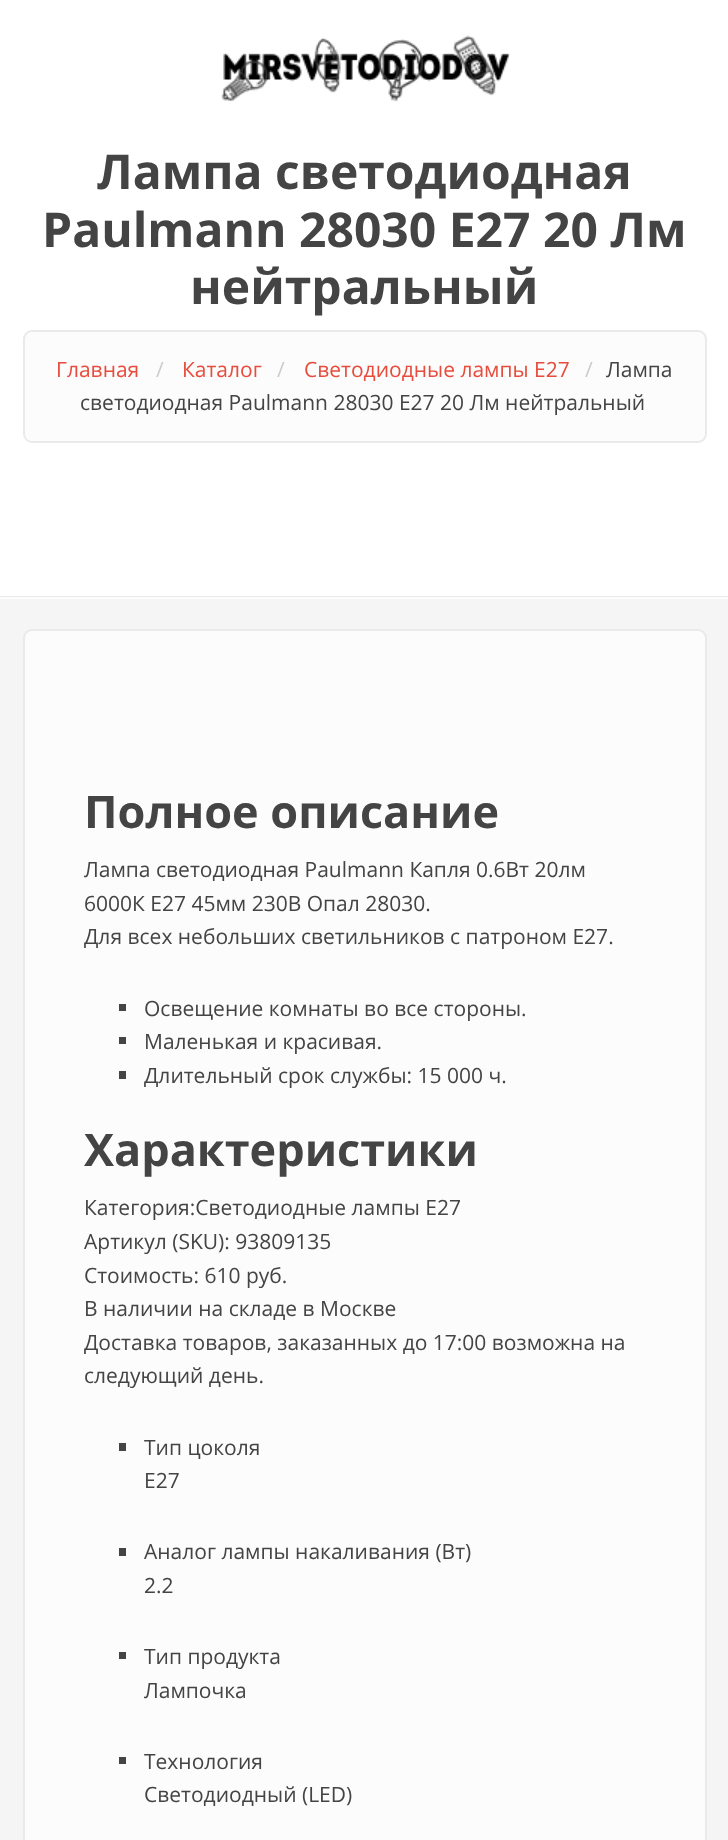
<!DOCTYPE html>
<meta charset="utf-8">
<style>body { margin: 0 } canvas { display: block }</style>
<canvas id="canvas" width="728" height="1840"></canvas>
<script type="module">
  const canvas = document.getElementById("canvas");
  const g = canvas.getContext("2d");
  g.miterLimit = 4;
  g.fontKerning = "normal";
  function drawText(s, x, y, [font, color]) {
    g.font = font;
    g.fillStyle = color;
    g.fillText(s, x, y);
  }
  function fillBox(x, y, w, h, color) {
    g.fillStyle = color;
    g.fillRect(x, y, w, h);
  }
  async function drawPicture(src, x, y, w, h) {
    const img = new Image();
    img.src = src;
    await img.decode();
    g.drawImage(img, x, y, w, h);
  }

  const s1 = ["bold 48px Open Sans", "#444444"];
  const s2 = ["21px Open Sans", "#E74C3C"];
  const s3 = ["21px Open Sans", "#CCCCCC"];
  const s4 = ["21px Open Sans", "#444444"];
  const s5 = ["bold 45px Open Sans", "#444444"];

  fillBox(0, 0, 728, 1840, "#F5F5F5");
  fillBox(0, 0, 728, 596, "#FFFFFF");
  fillBox(0, 596, 728, 1, "#EAEAEA");
  await drawPicture("pic1.png", 221, 35, 289, 67);
  drawText("Лампа светодиодная", 97, 189, s1);
  drawText("Paulmann 28030 E27 20 Лм", 42, 247, s1);
  drawText("нейтральный", 190, 304, s1);
  g.fillStyle = "#FCFCFC";
  g.beginPath();
  g.roundRect(24, 331, 682, 111, 8);
  g.fill();
  g.strokeStyle = "#EAEAEA";
  g.lineWidth = 2;
  g.stroke();
  drawText("Главная", 56, 377, s2);
  drawText("/", 156, 377, s3);
  drawText("Каталог", 182, 377, s2);
  drawText("/", 277, 377, s3);
  drawText("Светодиодные лампы E27", 304, 377, s2);
  drawText("/", 585, 377, s3);
  drawText("Лампа", 606, 377, s4);
  drawText("светодиодная Paulmann 28030 E27 20 Лм нейтральный", 80, 410, s4);
  fillBox(0, 597, 728, 2, "#FCFCFC");
  g.beginPath();
  g.roundRect(24, 630, 682, 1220, 8);
  g.fill();
  g.stroke();
  drawText("Полное описание", 84, 828, s5);
  drawText("Лампа светодиодная Paulmann Капля 0.6Вт 20лм", 84, 877, s4);
  drawText("6000К E27 45мм 230В Опал 28030.", 84, 911, s4);
  drawText("Для всех небольших светильников с патроном E27.", 84, 944, s4);
  fillBox(119, 1004, 7, 7, "#444444");
  drawText("Освещение комнаты во все стороны.", 144, 1016, s4);
  fillBox(119, 1037, 7, 7, "#444444");
  drawText("Маленькая и красивая.", 144, 1049, s4);
  fillBox(119, 1071, 7, 8, "#444444");
  drawText("Длительный срок службы: 15 000 ч.", 144, 1083, s4);
  drawText("Характеристики", 84, 1166, s5);
  drawText("Категория:Светодиодные лампы E27", 84, 1215, s4);
  drawText("Артикул (SKU): 93809135", 84, 1249, s4);
  drawText("Стоимость: 610 руб.", 84, 1283, s4);
  drawText("В наличии на складе в Москве", 84, 1316, s4);
  drawText("Доставка товаров, заказанных до 17:00 возможна на", 84, 1350, s4);
  drawText("следующий день.", 84, 1383, s4);
  fillBox(119, 1443, 7, 8, "#444444");
  drawText("Тип цоколя", 144, 1455, s4);
  drawText("E27", 144, 1488, s4);
  fillBox(119, 1548, 7, 8, "#444444");
  drawText("Аналог лампы накаливания (Вт)", 144, 1559, s4);
  drawText("2.2", 144, 1593, s4);
  fillBox(119, 1652, 7, 7, "#444444");
  drawText("Тип продукта", 144, 1664, s4);
  drawText("Лампочка", 144, 1698, s4);
  fillBox(119, 1757, 7, 7, "#444444");
  drawText("Технология", 144, 1769, s4);
  drawText("Светодиодный (LED)", 144, 1802, s4);
</script>
